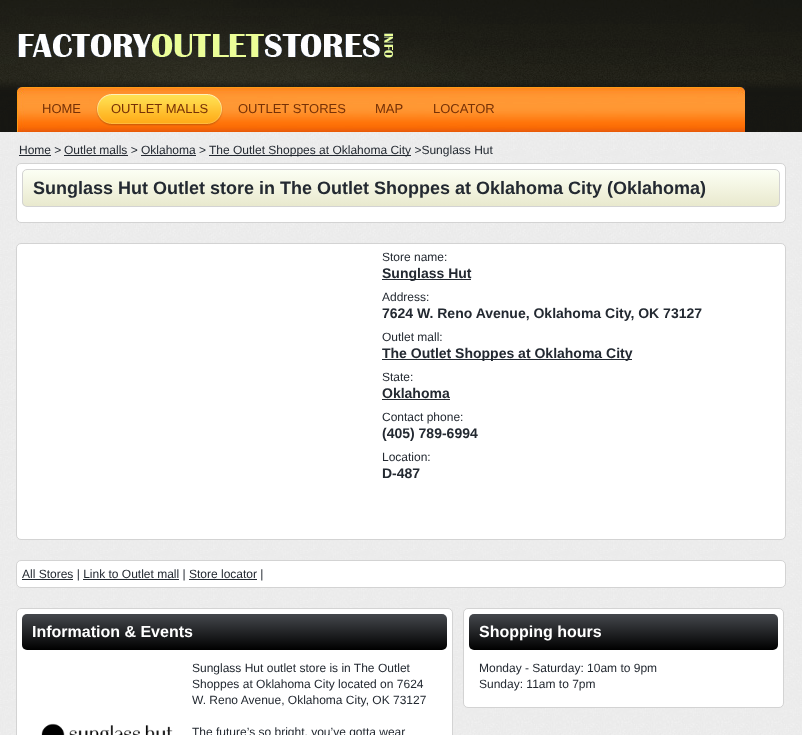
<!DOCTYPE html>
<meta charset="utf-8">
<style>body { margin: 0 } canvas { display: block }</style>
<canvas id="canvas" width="802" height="735"></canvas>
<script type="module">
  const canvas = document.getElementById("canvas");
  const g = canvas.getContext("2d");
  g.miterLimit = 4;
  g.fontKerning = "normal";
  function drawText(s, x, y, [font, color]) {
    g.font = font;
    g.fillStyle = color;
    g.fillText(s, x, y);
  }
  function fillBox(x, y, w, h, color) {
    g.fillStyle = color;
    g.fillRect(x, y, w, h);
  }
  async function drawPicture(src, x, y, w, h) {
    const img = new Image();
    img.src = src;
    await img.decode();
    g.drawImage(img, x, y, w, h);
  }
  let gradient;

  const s1 = ["13px Liberation Sans", "#763107"];
  const s2 = ["12px Liberation Sans", "#232931"];
  const s3 = ["bold 18px Liberation Sans", "#232931"];
  const s4 = ["bold 14px Liberation Sans", "#232931"];
  const s5 = ["bold 16px Liberation Sans", "#FFFFFF"];

  fillBox(0, 0, 802, 735, "#FFFFFF");
  await drawPicture("pic1.png", 0, 132, 802, 603);
  await drawPicture("pic2.png", 0, 0, 802, 132);
  await drawPicture("pic3.png", 18, 33, 375, 25);
  await drawPicture("pic4.png", 17, 87, 728, 45);
  drawText("HOME", 42, 113, s1);
  await drawPicture("pic5.png", 111, 94, 97, 32);
  await drawPicture("pic6.png", 96, 94, 15, 32);
  await drawPicture("pic7.png", 208, 94, 15, 32);
  drawText("OUTLET MALLS", 111, 113, s1);
  drawText("OUTLET STORES", 238, 113, s1);
  drawText("MAP", 375, 113, s1);
  drawText("LOCATOR", 433, 113, s1);
  drawText("Home >", 19, 154, s2);
  fillBox(19, 155, 32, 1, "#232931");
  drawText("Outlet malls >", 64, 154, s2);
  fillBox(64, 155, 64, 1, "#232931");
  drawText("Oklahoma >", 141, 154, s2);
  fillBox(141, 155, 55, 1, "#232931");
  fillBox(209, 155, 202, 1, "#232931");
  drawText("The Outlet Shoppes at Oklahoma City >Sunglass Hut", 209, 154, s2);
  g.fillStyle = "#FFFFFF";
  g.beginPath();
  g.roundRect(16.5, 163.5, 769, 59, 4.5);
  g.fill();
  g.strokeStyle = "#D3D3D3";
  g.stroke();
  g.save();
  g.beginPath();
  g.roundRect(22, 169, 758, 38, 5);
  g.clip();
  gradient = g.createLinearGradient(401, 170, 401, 206);
  gradient.addColorStop(0, "#FCFFF4");
  gradient.addColorStop(1, "#E9E9CE");
  g.fillStyle = gradient;
  g.fillRect(22, 170, 758, 36);
  g.restore();
  g.beginPath();
  g.roundRect(22.5, 169.5, 757, 37, 4.5);
  g.stroke();
  drawText("Sunglass Hut Outlet store in The Outlet Shoppes at Oklahoma City (Oklahoma)", 33, 194, s3);
  g.fillStyle = "#FFFFFF";
  g.beginPath();
  g.roundRect(16.5, 243.5, 769, 296, 4.5);
  g.fill();
  g.stroke();
  drawText("Store name:", 382, 261, s2);
  fillBox(382, 279, 89, 1, "#232931");
  drawText("Sunglass Hut", 382, 278, s4);
  drawText("Address:", 382, 301, s2);
  drawText("7624 W. Reno Avenue, Oklahoma City, OK 73127", 382, 318, s4);
  drawText("Outlet mall:", 382, 341, s2);
  fillBox(382, 359, 250, 1, "#232931");
  drawText("The Outlet Shoppes at Oklahoma City", 382, 358, s4);
  drawText("State:", 382, 381, s2);
  drawText("Oklahoma", 382, 398, s4);
  fillBox(382, 399, 68, 1, "#232931");
  drawText("Contact phone:", 382, 421, s2);
  drawText("(405) 789-6994", 382, 438, s4);
  drawText("Location:", 382, 461, s2);
  drawText("D-487", 382, 478, s4);
  g.fillStyle = "#FFFFFF";
  g.beginPath();
  g.roundRect(16.5, 560.5, 769, 27, 4.5);
  g.fill();
  g.stroke();
  fillBox(22, 579, 51, 1, "#232931");
  drawText("All Stores | Link to Outlet mall | Store locator |", 22, 578, s2);
  fillBox(83, 579, 96, 1, "#232931");
  fillBox(189, 579, 68, 1, "#232931");
  g.fillStyle = "#FFFFFF";
  g.beginPath();
  g.roundRect(16.5, 608.5, 436, 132, 4.5);
  g.fill();
  g.stroke();
  gradient = g.createLinearGradient(235, 614, 235, 650);
  gradient.addColorStop(0, "#45484D");
  gradient.addColorStop(1, "#000000");
  g.fillStyle = gradient;
  g.beginPath();
  g.roundRect(22, 614, 425, 36, 5);
  g.fill();
  drawText("Information & Events", 32, 637, s5);
  drawText("Sunglass Hut outlet store is in The Outlet", 192, 672, s2);
  drawText("Shoppes at Oklahoma City located on 7624", 192, 688, s2);
  drawText("W. Reno Avenue, Oklahoma City, OK 73127", 192, 704, s2);
  await drawPicture("pic8.png", 41, 723, 132, 12);
  drawText("The future’s so bright, you’ve gotta wear", 192, 736, s2);
  g.fillStyle = "#FFFFFF";
  g.beginPath();
  g.roundRect(463.5, 608.5, 320, 99, 4.5);
  g.fill();
  g.stroke();
  gradient = g.createLinearGradient(624, 614, 624, 650);
  gradient.addColorStop(0, "#45484D");
  gradient.addColorStop(1, "#000000");
  g.fillStyle = gradient;
  g.beginPath();
  g.roundRect(469, 614, 309, 36, 5);
  g.fill();
  drawText("Shopping hours", 479, 637, s5);
  drawText("Monday - Saturday: 10am to 9pm", 479, 672, s2);
  drawText("Sunday: 11am to 7pm", 479, 688, s2);
</script>
